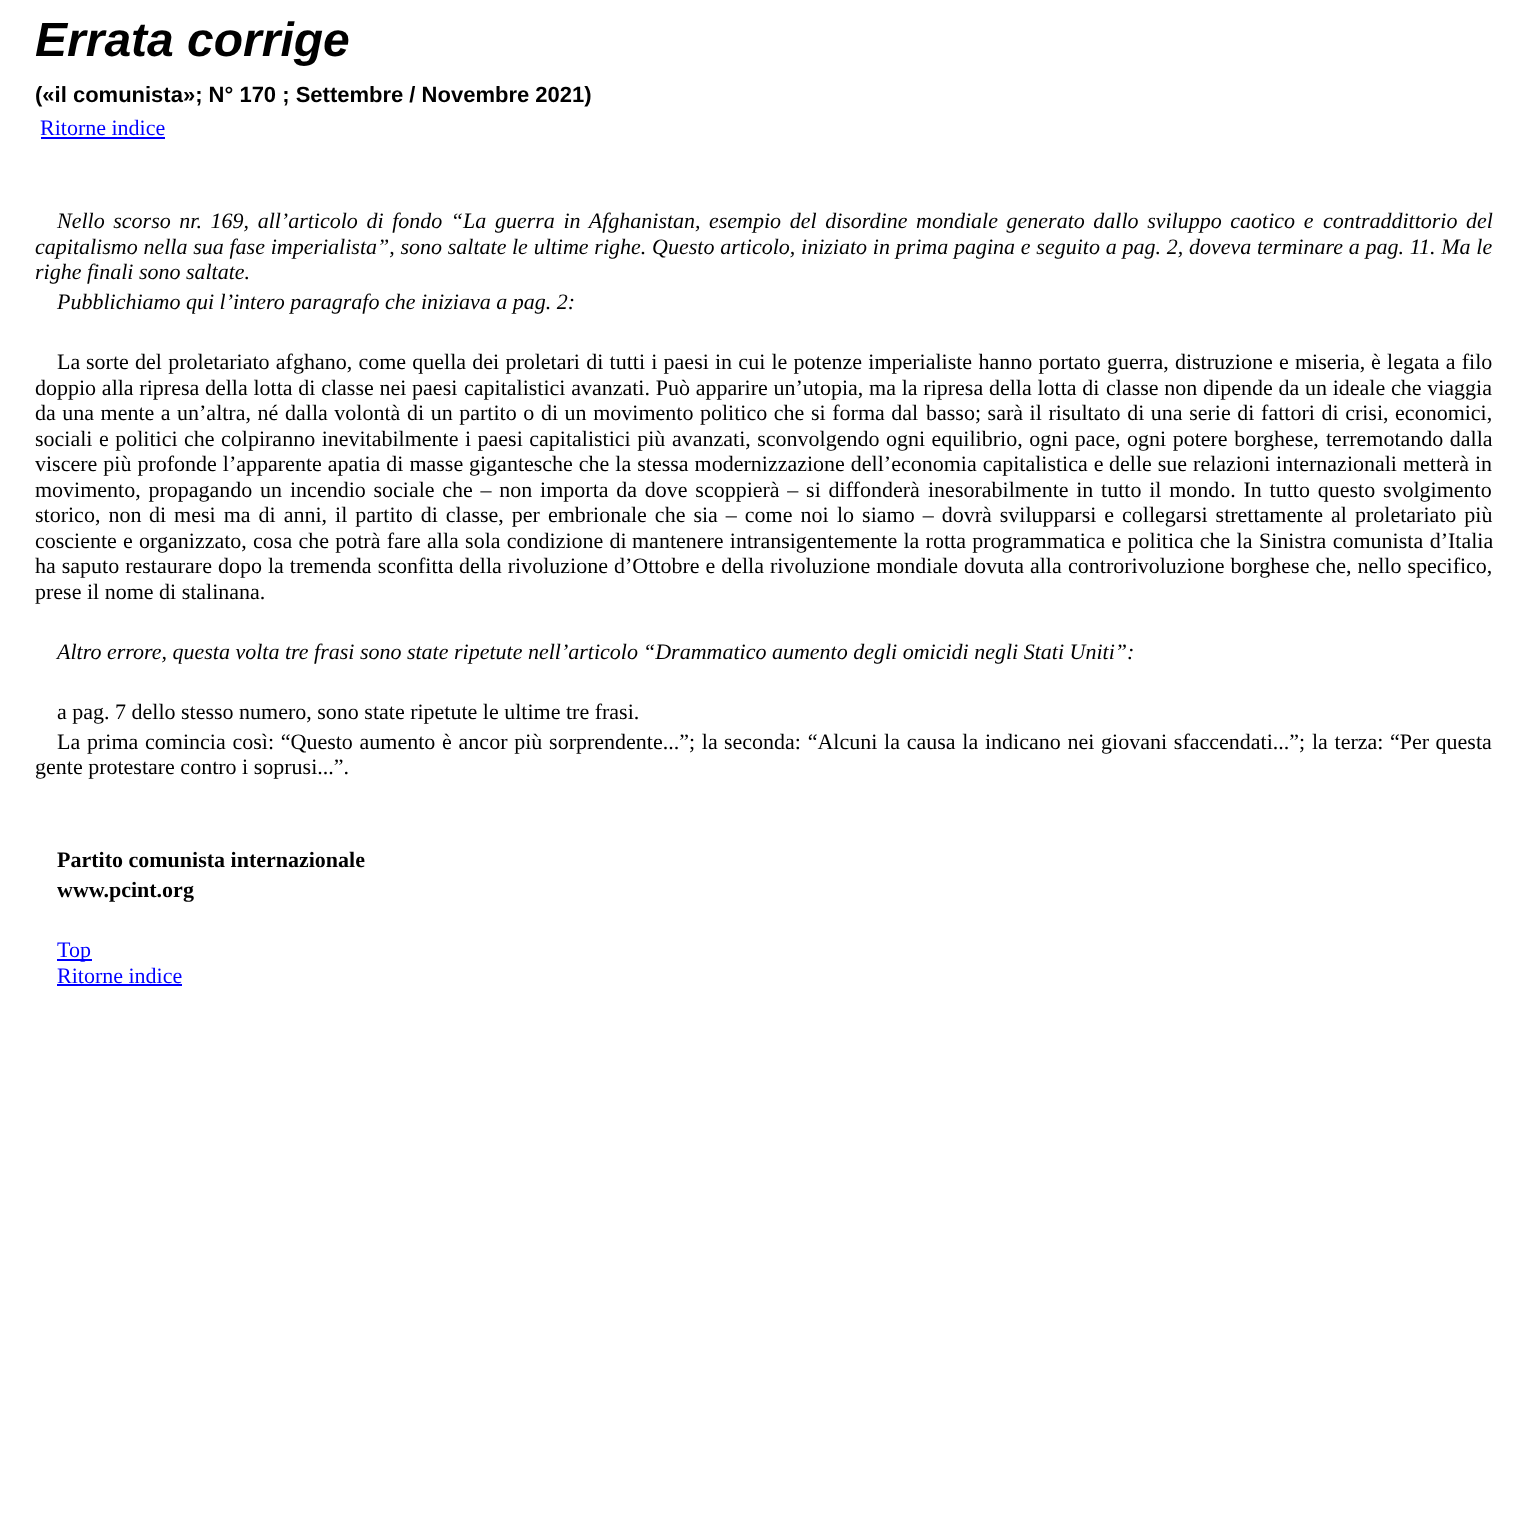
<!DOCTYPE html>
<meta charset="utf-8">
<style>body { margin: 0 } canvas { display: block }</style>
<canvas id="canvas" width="1527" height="1516"></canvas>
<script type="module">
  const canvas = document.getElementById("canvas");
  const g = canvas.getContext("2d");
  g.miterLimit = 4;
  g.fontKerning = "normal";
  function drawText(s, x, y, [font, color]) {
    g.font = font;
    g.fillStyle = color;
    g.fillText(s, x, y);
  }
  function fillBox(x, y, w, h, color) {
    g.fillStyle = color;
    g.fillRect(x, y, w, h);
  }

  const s1 = ["italic bold 48px Liberation Sans", "#000000"];
  const s2 = ["bold 22px Liberation Sans", "#000000"];
  const s3 = ["22px Liberation Serif", "#0000FF"];
  const s4 = ["italic 22px Liberation Serif", "#000000"];
  const s5 = ["22px Liberation Serif", "#000000"];
  const s6 = ["bold 22px Liberation Serif", "#000000"];

  fillBox(0, 0, 1527, 1516, "#FFFFFF");
  drawText("Errata corrige", 35, 56, s1);
  drawText("(«il comunista»; N° 170 ; Settembre / Novembre 2021)", 35, 102, s2);
  drawText("Ritorne indice", 40, 135, s3);
  fillBox(41, 137, 124, 2, "#0000FF");
  g.wordSpacing = "3.1px";
  drawText("Nello scorso nr. 169, all’articolo di fondo “La guerra in Afghanistan,", 57, 228, s4);
  drawText("esempio del disordine mondiale generato dallo sviluppo caotico e", 709, 228, s4);
  g.wordSpacing = "3px";
  drawText("contraddittorio del", 1323, 228, s4);
  g.wordSpacing = "0.25px";
  drawText("capitalismo nella sua fase imperialista”, sono saltate", 35, 254, s4);
  drawText("le ultime righe. Questo articolo, iniziato in prima pagina e seguito a pag. 2, doveva terminare a pag. 11. Ma le", 512, 254, s4);
  g.wordSpacing = "0px";
  drawText("righe finali sono saltate.", 35, 279, s4);
  drawText("Pubblichiamo qui l’intero paragrafo che iniziava a pag. 2:", 57, 309, s4);
  drawText("La", 57, 369, s5);
  g.wordSpacing = "0.75px";
  drawText("sorte del proletariato afghano, come quella dei proletari di tutti i paesi", 86, 369, s5);
  drawText("in cui le potenze imperialiste hanno portato guerra, distruzione e miseria,", 715, 369, s5);
  drawText("è legata a filo", 1371, 369, s5);
  g.wordSpacing = "0.25px";
  drawText("doppio alla ripresa della lotta di classe nei paesi", 35, 395, s5);
  drawText("capitalistici avanzati. Può apparire un’utopia, ma la ripresa della lotta di", 464, 395, s5);
  drawText("classe non dipende da un ideale che viaggia", 1106, 395, s5);
  g.wordSpacing = "1px";
  drawText("da una mente a un’altra, né", 35, 420, s5);
  g.wordSpacing = "1.1px";
  drawText("dalla volontà di un partito o di un movimento politico che si forma dal", 285, 420, s5);
  drawText("basso; sarà il risultato di una serie di fattori di crisi, economici,", 926, 420, s5);
  g.wordSpacing = "1px";
  drawText("sociali e politici che colpiranno inevitabilmente i paesi capitalistici più", 35, 446, s5);
  drawText("avanzati, sconvolgendo ogni equilibrio, ogni pace, ogni potere borghese,", 672, 446, s5);
  drawText("terremotando dalla", 1326, 446, s5);
  g.wordSpacing = "0.5px";
  drawText("viscere più profonde l’apparente apatia di masse", 35, 471, s5);
  drawText("gigantesche che la stessa modernizzazione dell’economia capitalistica e", 469, 471, s5);
  drawText("delle sue relazioni internazionali metterà in", 1109, 471, s5);
  g.wordSpacing = "2.25px";
  drawText("movimento, propagando un", 35, 497, s5);
  drawText("incendio sociale che – non importa da dove scoppierà – si diffonderà", 290, 497, s5);
  drawText("inesorabilmente in tutto il mondo. In tutto questo svolgimento", 928, 497, s5);
  g.wordSpacing = "2.5px";
  drawText("storico, non", 35, 522, s5);
  drawText("di mesi ma di anni, il partito di classe, per embrionale che sia – come noi", 149, 522, s5);
  drawText("lo siamo – dovrà svilupparsi e collegarsi strettamente al proletariato più", 837, 522, s5);
  g.wordSpacing = "0.75px";
  drawText("cosciente e organizzato, cosa che potrà fare alla sola condizione di", 35, 548, s5);
  drawText("mantenere intransigentemente la rotta programmatica e politica che la", 632, 548, s5);
  g.wordSpacing = "1px";
  drawText("Sinistra comunista d’Italia", 1259, 548, s5);
  g.wordSpacing = "0.5px";
  drawText("ha saputo restaurare dopo la tremenda sconfitta", 35, 573, s5);
  drawText("della rivoluzione d’Ottobre e della rivoluzione mondiale dovuta alla", 459, 573, s5);
  drawText("controrivoluzione borghese che, nello specifico,", 1068, 573, s5);
  g.wordSpacing = "0px";
  drawText("prese il nome di stalinana.", 35, 599, s5);
  drawText("Altro errore, questa volta tre frasi sono state ripetute nell’articolo", 57, 659, s4);
  drawText("“Drammatico aumento degli omicidi negli Stati Uniti”:", 643, 659, s4);
  drawText("a pag. 7 dello stesso numero, sono state ripetute le ultime tre frasi.", 57, 719, s5);
  drawText("La", 57, 749, s5);
  g.wordSpacing = "1.25px";
  drawText("prima comincia così: “Questo aumento è ancor più sorprendente...”; la", 87, 749, s5);
  drawText("seconda: “Alcuni la causa la indicano nei giovani sfaccendati...”; la terza:", 724, 749, s5);
  g.wordSpacing = "1px";
  drawText("“Per questa", 1390, 749, s5);
  g.wordSpacing = "0px";
  drawText("gente protestare contro i soprusi...”.", 35, 774, s5);
  drawText("Partito comunista internazionale", 57, 867, s6);
  drawText("www.pcint.org", 57, 897, s6);
  fillBox(57, 959, 35, 2, "#0000FF");
  drawText("Top", 57, 957, s3);
  drawText("Ritorne indice", 57, 983, s3);
  fillBox(57, 984, 125, 2, "#0000FF");
</script>
